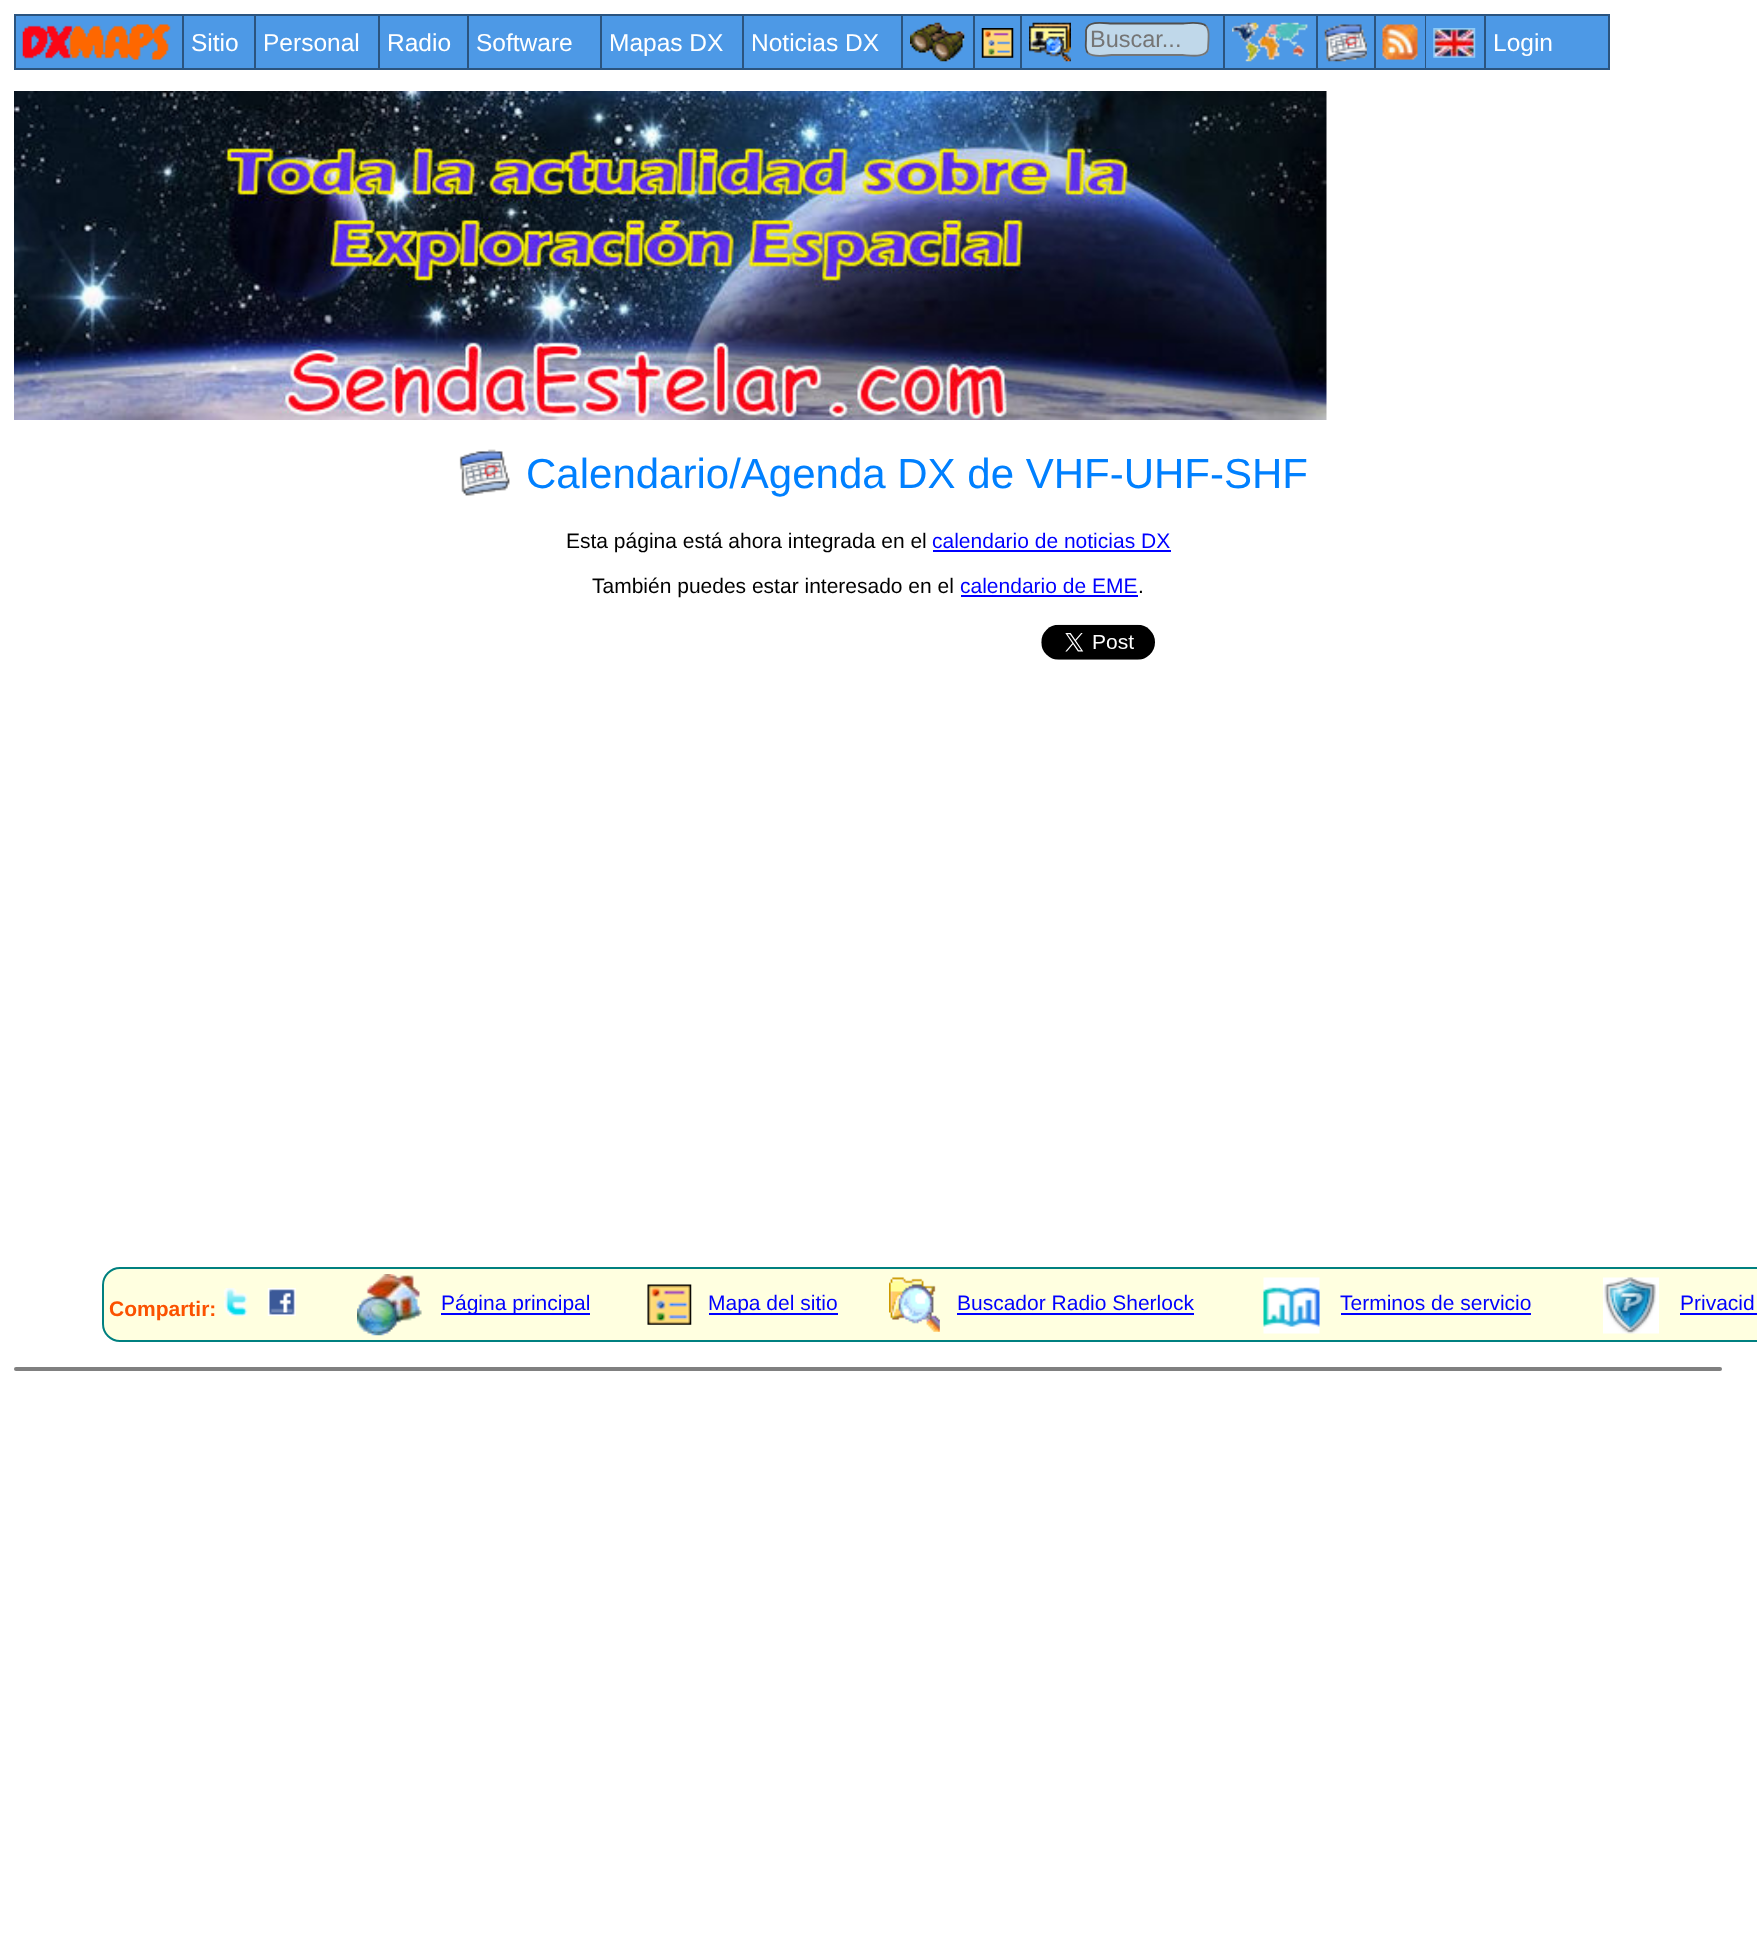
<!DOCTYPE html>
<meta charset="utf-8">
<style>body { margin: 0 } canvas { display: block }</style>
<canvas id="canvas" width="1757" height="1940"></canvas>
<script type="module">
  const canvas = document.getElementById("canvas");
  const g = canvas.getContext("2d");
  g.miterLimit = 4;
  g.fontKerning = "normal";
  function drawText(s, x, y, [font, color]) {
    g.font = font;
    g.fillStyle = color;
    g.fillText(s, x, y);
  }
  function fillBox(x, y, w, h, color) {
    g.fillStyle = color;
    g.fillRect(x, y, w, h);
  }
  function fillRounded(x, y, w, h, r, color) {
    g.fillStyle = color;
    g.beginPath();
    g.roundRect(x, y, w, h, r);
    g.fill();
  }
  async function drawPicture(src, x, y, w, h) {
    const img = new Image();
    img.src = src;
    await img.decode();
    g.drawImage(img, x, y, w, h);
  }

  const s1 = ["23.5px Liberation Sans", "#757575"];
  const s2 = ["24.5px Liberation Sans", "#FFFFFF"];
  const s3 = ["42px Liberation Sans", "#0080FF"];
  const s4 = ["21px Liberation Sans", "#000000"];
  const s5 = ["21px Liberation Sans", "#0000FF"];
  const s6 = ["bold 21px Liberation Sans", "#FB5200"];

  fillBox(0, 0, 1757, 1940, "#FFFFFF");
  fillBox(14, 14, 1596, 56, "#2B547F");
  fillBox(1022, 16, 201, 52, "#4D99E6");
  fillRounded(1085, 23, 124, 33, 9, "#C0D8EA");
  g.beginPath();
  g.moveTo(1206, 26);
  g.bezierCurveTo(1209.5, 29.5, 1208.5, 35, 1208.5, 39.5);
  g.lineTo(1208, 49);
  g.bezierCurveTo(1206, 59, 1187.5, 55, 1182.5, 55);
  g.lineTo(1111.5, 55);
  g.bezierCurveTo(1109, 55, 1093.5, 58, 1088, 53);
  g.strokeStyle = "#767676";
  g.lineWidth = 1.8;
  g.stroke();
  g.beginPath();
  g.moveTo(1088, 53);
  g.bezierCurveTo(1084.5, 49.5, 1086, 43.5, 1086, 39.5);
  g.lineTo(1086, 30);
  g.bezierCurveTo(1088, 19.5, 1106.5, 23.5, 1111.5, 23.5);
  g.lineTo(1182.5, 23.5);
  g.bezierCurveTo(1185, 23.5, 1201, 21, 1206, 26);
  g.strokeStyle = "#4F4F4F";
  g.stroke();
  drawText("Buscar...", 1090, 47, s1);
  fillBox(16, 16, 166, 52, "#4D99E6");
  await drawPicture("pic1.png", 22, 24, 149, 36);
  fillBox(184, 16, 70, 52, "#4D99E6");
  drawText("Sitio", 191, 51, s2);
  fillBox(256, 16, 122, 52, "#4D99E6");
  drawText("Personal", 263, 51, s2);
  fillBox(380, 16, 87, 52, "#4D99E6");
  drawText("Radio", 387, 51, s2);
  fillBox(469, 16, 131, 52, "#4D99E6");
  drawText("Software", 476, 51, s2);
  fillBox(602, 16, 140, 52, "#4D99E6");
  drawText("Mapas DX", 609, 51, s2);
  fillBox(744, 16, 157, 52, "#4D99E6");
  drawText("Noticias DX", 751, 51, s2);
  fillBox(903, 16, 70, 52, "#4D99E6");
  await drawPicture("pic2.png", 910, 22, 55, 40);
  fillBox(975, 16, 45, 52, "#4D99E6");
  await drawPicture("pic3.png", 981, 28, 33, 30);
  await drawPicture("pic4.png", 1029, 22, 42, 40);
  fillBox(1225, 16, 91, 52, "#4D99E6");
  await drawPicture("pic5.png", 1232, 22, 76, 40);
  fillBox(1318, 16, 56, 52, "#4D99E6");
  await drawPicture("pic6.png", 1324, 24, 43, 38);
  fillBox(1376, 16, 49, 52, "#4D99E6");
  await drawPicture("pic7.png", 1382, 24, 36, 36);
  fillBox(1426, 16, 58, 52, "#4D99E6");
  await drawPicture("pic8.png", 1433, 28, 43, 30);
  fillBox(1486, 16, 122, 52, "#4D99E6");
  drawText("Login", 1493, 51, s2);
  await drawPicture("pic9.png", 14, 91, 1313, 329);
  await drawPicture("pic10.png", 459, 449, 51, 47);
  drawText("Calendario/Agenda DX de VHF-UHF-SHF", 526, 488, s3);
  drawText("Esta página está ahora integrada en el", 566, 548, s4);
  drawText("calendario de noticias DX", 932, 548, s5);
  fillBox(933, 550, 238, 2, "#0000FF");
  drawText("También puedes estar interesado en el", 592, 593, s4);
  drawText("calendario de EME", 960, 593, s5);
  fillBox(961, 595, 177, 2, "#0000FF");
  drawText(".", 1138, 593, s4);
  await drawPicture("pic11.png", 1041, 624, 114, 36);
  g.fillStyle = "#FFFFE0";
  g.beginPath();
  g.roundRect(103, 1268, 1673, 73, 17);
  g.fill();
  g.strokeStyle = "#008080";
  g.lineWidth = 2;
  g.stroke();
  drawText("Compartir:", 109, 1316, s6);
  await drawPicture("pic12.png", 223, 1288, 25, 28);
  await drawPicture("pic13.png", 267, 1288, 29, 28);
  await drawPicture("pic14.png", 357, 1274, 65, 62);
  fillBox(441, 1313, 149, 2, "#0000FF");
  drawText("Página principal", 441, 1310, s5);
  await drawPicture("pic15.png", 647, 1284, 45, 41);
  fillBox(709, 1313, 129, 2, "#0000FF");
  drawText("Mapa del sitio", 708, 1310, s5);
  await drawPicture("pic16.png", 889, 1277, 51, 55);
  drawText("Buscador Radio Sherlock", 957, 1310, s5);
  fillBox(957, 1313, 237, 2, "#0000FF");
  await drawPicture("pic17.png", 1263, 1277, 57, 57);
  drawText("Terminos de servicio", 1340, 1310, s5);
  fillBox(1341, 1313, 190, 2, "#0000FF");
  await drawPicture("pic18.png", 1603, 1277, 56, 57);
  drawText("Privacid", 1680, 1310, s5);
  fillBox(1680, 1313, 77, 2, "#0000FF");
  fillRounded(14, 1367, 1708, 4, 2, "#808080");
</script>
